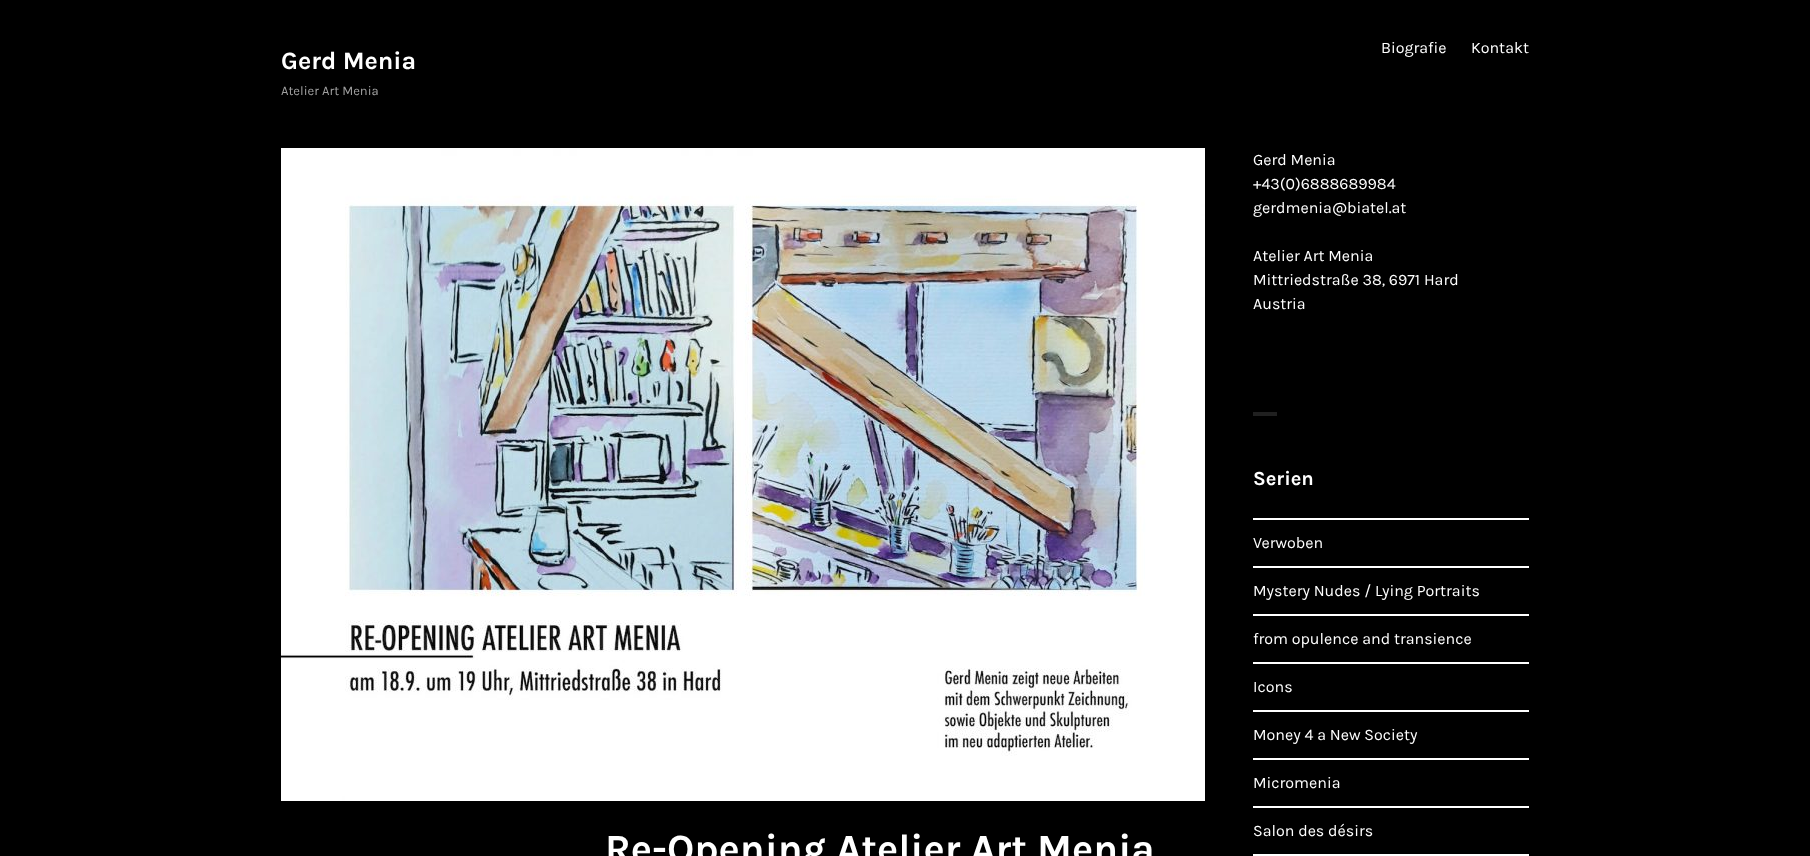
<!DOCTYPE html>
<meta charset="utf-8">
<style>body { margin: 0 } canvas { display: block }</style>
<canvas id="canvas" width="1810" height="856"></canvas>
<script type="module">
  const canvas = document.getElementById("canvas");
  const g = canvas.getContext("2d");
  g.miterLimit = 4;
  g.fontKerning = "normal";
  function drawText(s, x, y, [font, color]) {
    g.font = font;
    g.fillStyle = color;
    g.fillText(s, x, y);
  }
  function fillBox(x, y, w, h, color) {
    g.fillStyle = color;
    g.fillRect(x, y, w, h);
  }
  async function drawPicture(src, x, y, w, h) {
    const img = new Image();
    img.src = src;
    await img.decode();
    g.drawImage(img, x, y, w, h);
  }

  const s1 = ["16px Karla", "#FFFFFF"];
  const s2 = ["bold 25px Karla", "#FFFFFF"];
  const s3 = ["13px Karla", "#A0A0A0"];
  const s4 = ["bold 20px Karla", "#FFFFFF"];
  const s5 = ["bold 40px Karla", "#FFFFFF"];

  fillBox(0, 0, 1810, 856, "#000000");
  drawText("Biografie", 1381, 53, s1);
  drawText("Kontakt", 1471, 53, s1);
  drawText("Gerd Menia", 281, 69, s2);
  drawText("Atelier Art Menia", 281, 95, s3);
  drawText("Gerd Menia", 1253, 165, s1);
  drawText("+43(0)6888689984", 1253, 189, s1);
  drawText("gerdmenia@biatel.at", 1253, 213, s1);
  drawText("Atelier Art Menia", 1253, 261, s1);
  drawText("Mittriedstraße 38, 6971 Hard", 1253, 285, s1);
  drawText("Austria", 1253, 309, s1);
  fillBox(1253, 412, 24, 4, "#202020");
  drawText("Serien", 1253, 485, s4);
  fillBox(1253, 518, 276, 2, "#FFFFFF");
  drawText("Verwoben", 1253, 548, s1);
  fillBox(1253, 566, 276, 2, "#FFFFFF");
  drawText("Mystery Nudes / Lying Portraits", 1253, 596, s1);
  fillBox(1253, 614, 276, 2, "#FFFFFF");
  drawText("from opulence and transience", 1253, 644, s1);
  fillBox(1253, 662, 276, 2, "#FFFFFF");
  drawText("Icons", 1253, 692, s1);
  fillBox(1253, 710, 276, 2, "#FFFFFF");
  drawText("Money 4 a New Society", 1253, 740, s1);
  fillBox(1253, 758, 276, 2, "#FFFFFF");
  drawText("Micromenia", 1253, 788, s1);
  fillBox(1253, 806, 276, 2, "#FFFFFF");
  drawText("Salon des désirs", 1253, 836, s1);
  fillBox(1253, 854, 276, 2, "#FFFFFF");
  await drawPicture("pic1.png", 281, 148, 924, 653);
  drawText("Re-Opening Atelier Art Menia", 605, 862, s5);
</script>
